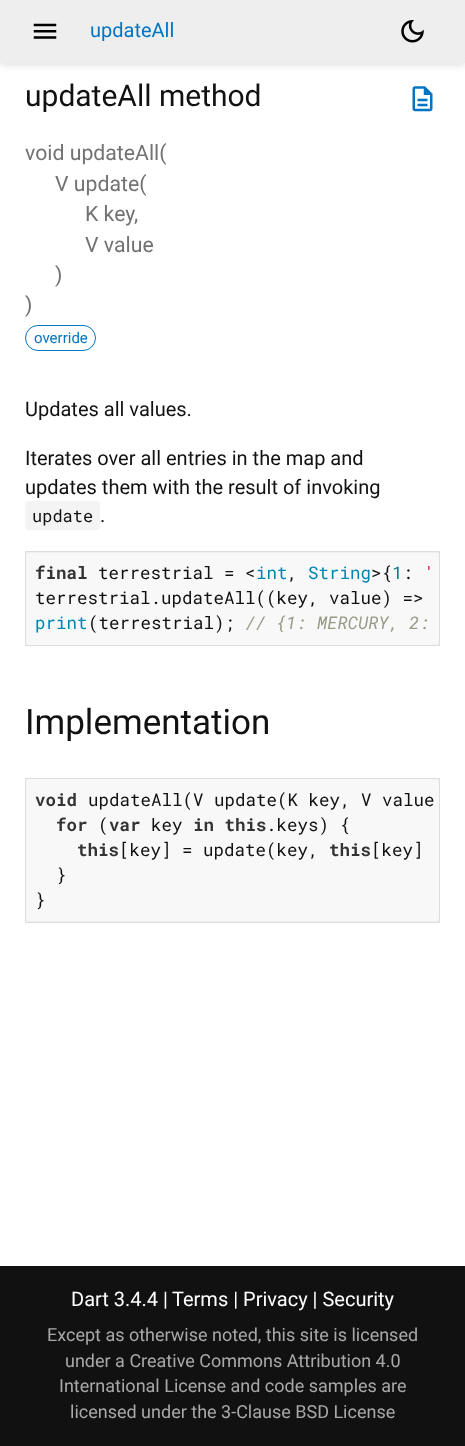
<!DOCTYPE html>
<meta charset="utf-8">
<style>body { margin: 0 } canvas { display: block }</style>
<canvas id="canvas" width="465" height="1446"></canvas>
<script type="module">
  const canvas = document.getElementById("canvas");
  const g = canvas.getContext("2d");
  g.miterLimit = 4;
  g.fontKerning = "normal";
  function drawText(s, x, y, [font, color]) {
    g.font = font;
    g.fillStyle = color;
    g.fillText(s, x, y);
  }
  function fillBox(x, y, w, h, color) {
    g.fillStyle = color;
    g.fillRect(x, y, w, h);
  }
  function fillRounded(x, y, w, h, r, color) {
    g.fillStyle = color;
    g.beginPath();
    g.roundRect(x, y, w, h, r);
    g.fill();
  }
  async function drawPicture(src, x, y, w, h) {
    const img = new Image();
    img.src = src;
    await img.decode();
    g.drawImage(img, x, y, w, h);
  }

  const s1 = ["20px Roboto", "#0175C2"];
  const s2 = ["30px Roboto", "#111111"];
  const s3 = ["21.25px Roboto", "#727272"];
  const s4 = ["15px Roboto", "#0175C2"];
  const s5 = ["20px Roboto", "#111111"];
  const s6 = ["17px Roboto Mono", "#111111"];
  const s7 = ["bold 17.5px Roboto Mono", "#333333"];
  const s8 = ["17.5px Roboto Mono", "#111111"];
  const s9 = ["17.5px Roboto Mono", "#0086B3"];
  const s10 = ["17.5px Roboto Mono", "#DD1144"];
  const s11 = ["17.5px Roboto Mono", "#008080"];
  const s12 = ["italic 17.5px Roboto Mono", "#999988"];
  const s13 = ["35px Roboto", "#111111"];
  const s14 = ["20px Roboto", "#FFFFFF"];
  const s15 = ["18px Roboto", "#A9A9A9"];

  fillBox(0, 0, 465, 1446, "#FFFFFF");
  g.fillStyle = "rgba(0, 0, 0, 0.1)";
  g.filter = "blur(3px)";
  g.beginPath();
  g.rect(0, 4, 465, 62);
  g.fill();
  g.filter = "none";
  fillBox(0, 0, 465, 63, "#EEEEEE");
  await drawPicture("pic1.png", 33, 23, 24, 16);
  drawText("updateAll", 90, 37, s1);
  await drawPicture("pic2.png", 401, 20, 23, 23);
  drawText("updateAll method", 25, 106, s2);
  await drawPicture("pic3.png", 412, 86, 21, 26);
  drawText("void updateAll(", 25, 160, s3);
  drawText("V update(", 55, 191, s3);
  drawText("K key", 85, 221, s3);
  drawText(",", 134, 221, s3);
  drawText("V value", 85, 252, s3);
  drawText(")", 55, 282, s3);
  drawText(")", 25, 312, s3);
  g.beginPath();
  g.roundRect(25.5, 325.5, 70, 25, 12.5);
  g.strokeStyle = "#0175C2";
  g.stroke();
  drawText("override", 34, 343, s4);
  drawText("Updates all values.", 25, 416, s5);
  drawText("Iterates over all entries in the map and", 25, 465, s5);
  drawText("updates them with the result of invoking", 25, 494, s5);
  fillRounded(25, 501, 75, 29, 4, "#F4F4F4");
  drawText("update", 32, 522, s6);
  drawText(".", 100, 522, s5);
  g.fillStyle = "#EEEEEE";
  g.beginPath();
  g.rect(25.5, 551.5, 414, 94);
  g.fill();
  g.strokeStyle = "#DDDDDD";
  g.stroke();
  fillRounded(26, 553, 413, 92, 4, "#F8F8F8");
  drawText("final", 35, 579, s7);
  drawText("terrestrial = <", 98, 579, s8);
  drawText("int", 256, 579, s9);
  drawText("String", 308, 579, s9);
  drawText(">{ :", 371, 579, s8);
  drawText("'", 424, 579, s10);
  drawText("1", 392, 579, s11);
  drawText(",", 287, 579, s8);
  drawText("terrestrial.updateAll((key, value) =>", 35, 604, s8);
  drawText("print", 35, 629, s9);
  drawText("(terrestrial);", 88, 629, s8);
  drawText("// {1: MERCURY, 2:", 245, 629, s12);
  drawText("Implementation", 25, 734, s13);
  g.fillStyle = "#EEEEEE";
  g.beginPath();
  g.rect(25.5, 778.5, 414, 144);
  g.fill();
  g.stroke();
  fillRounded(26, 779, 413, 142, 4, "#F8F8F8");
  drawText("void", 35, 806, s7);
  drawText("updateAll(V update(K key, V value", 88, 806, s8);
  drawText("for", 56, 831, s7);
  drawText("(", 98, 831, s8);
  drawText("var", 109, 831, s7);
  drawText("key", 151, 831, s8);
  drawText("in this", 193, 831, s7);
  drawText(".keys) {", 266, 831, s8);
  drawText("this", 77, 856, s7);
  drawText("[key] = update(key,", 119, 856, s8);
  drawText("this", 329, 856, s7);
  drawText("[key]", 371, 856, s8);
  drawText("}", 56, 881, s8);
  drawText("}", 35, 906, s8);
  fillBox(0, 1266, 465, 180, "#111111");
  drawText("Terms | Privacy | Security", 172, 1306, s14);
  drawText("Except as otherwise noted, this site is licensed", 47, 1341, s15);
  drawText("under a Creative Commons Attribution 4.0", 65, 1367, s15);
  drawText("International License and code samples are", 59, 1392, s15);
  drawText("licensed under the 3-Clause BSD License", 70, 1418, s15);
  drawText("Dart 3.4.4 |", 71, 1306, s14);
</script>
